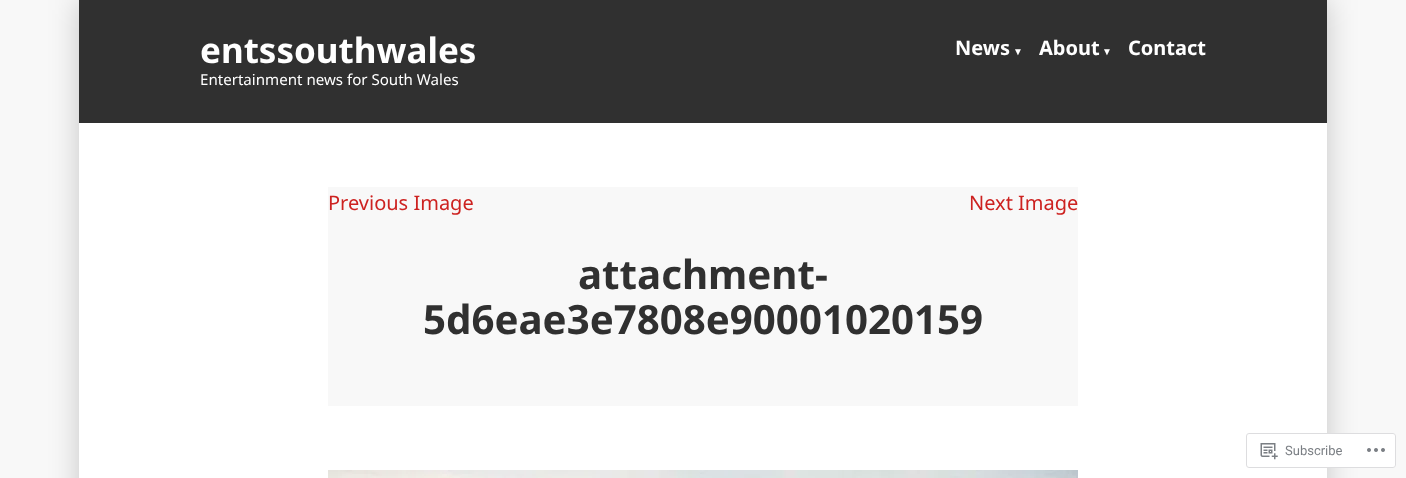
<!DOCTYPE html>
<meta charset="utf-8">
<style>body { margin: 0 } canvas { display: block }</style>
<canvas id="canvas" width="1406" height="478"></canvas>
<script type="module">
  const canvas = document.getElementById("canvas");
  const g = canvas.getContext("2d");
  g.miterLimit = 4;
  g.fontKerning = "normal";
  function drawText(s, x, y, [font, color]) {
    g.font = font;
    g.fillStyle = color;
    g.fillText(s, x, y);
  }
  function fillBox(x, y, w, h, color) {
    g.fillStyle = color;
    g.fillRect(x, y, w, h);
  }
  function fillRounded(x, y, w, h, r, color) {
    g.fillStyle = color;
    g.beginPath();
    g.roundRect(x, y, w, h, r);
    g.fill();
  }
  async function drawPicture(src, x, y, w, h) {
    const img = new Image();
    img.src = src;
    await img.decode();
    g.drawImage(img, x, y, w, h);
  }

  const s1 = ["bold 35px Noto Sans", "#FFFFFF"];
  const s2 = ["bold 20px Noto Sans", "#FFFFFF"];
  const s3 = ["bold 10px Liberation Sans", "#FFFFFF"];
  const s4 = ["15.1px Noto Sans", "#FFFFFF"];
  const s5 = ["20px Noto Sans", "#CD2220"];
  const s6 = ["bold 40.25px Noto Sans", "#303030"];
  const s7 = ["13px Roboto", "#7B7F84"];

  fillBox(0, 0, 1406, 478, "#F8F8F8");
  g.fillStyle = "rgba(0, 0, 0, 0.2)";
  g.filter = "blur(15px)";
  g.beginPath();
  g.rect(79, 0, 1248, 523);
  g.fill();
  g.filter = "none";
  fillBox(79, 123, 1248, 355, "#FFFFFF");
  fillBox(79, 0, 1248, 123, "#303030");
  drawText("entssouthwales", 200, 63, s1);
  drawText("News", 955, 55, s2);
  drawText("▼", 1013, 55, s3);
  drawText("About", 1039, 55, s2);
  drawText("▼", 1102, 55, s3);
  drawText("Contact", 1128, 55, s2);
  drawText("Entertainment news for South Wales", 200, 85, s4);
  fillBox(328, 187, 750, 219, "#F8F8F8");
  drawText("Previous Image", 328, 210, s5);
  drawText("Next Image", 969, 210, s5);
  drawText("attachment-", 578, 289, s6);
  drawText("5d6eae3e7808e90001020159", 423, 334, s6);
  await drawPicture("pic1.png", 328, 470, 750, 8);
  fillRounded(1246, 433, 150, 35, 3, "rgba(255, 255, 255, 0.98)");
  g.beginPath();
  g.roundRect(1246.5, 433.5, 149, 34, 2.5);
  g.strokeStyle = "rgba(220, 220, 222, 0.98)";
  g.stroke();
  await drawPicture("pic2.png", 1260, 443, 18, 17);
  drawText("Subscribe", 1285, 455, s7);
  await drawPicture("pic3.png", 1367, 448, 18, 4);
</script>
